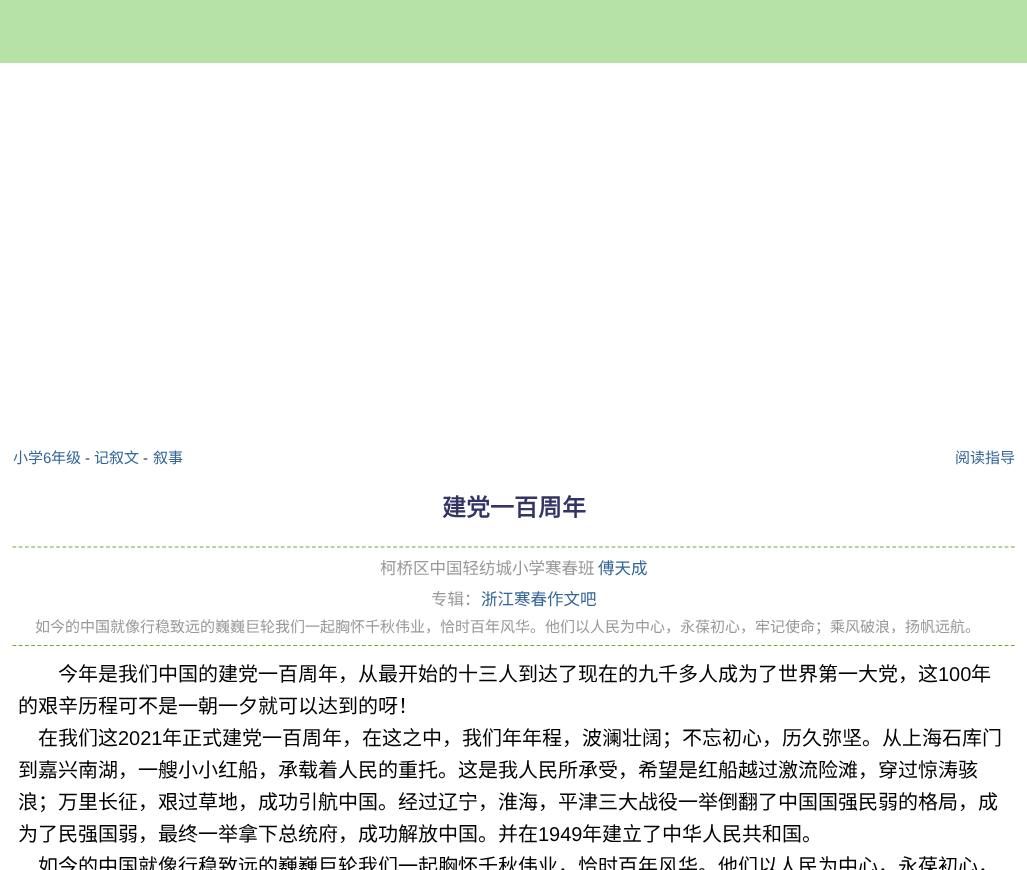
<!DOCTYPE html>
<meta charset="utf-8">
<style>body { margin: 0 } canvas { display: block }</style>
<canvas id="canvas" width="1027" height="870"></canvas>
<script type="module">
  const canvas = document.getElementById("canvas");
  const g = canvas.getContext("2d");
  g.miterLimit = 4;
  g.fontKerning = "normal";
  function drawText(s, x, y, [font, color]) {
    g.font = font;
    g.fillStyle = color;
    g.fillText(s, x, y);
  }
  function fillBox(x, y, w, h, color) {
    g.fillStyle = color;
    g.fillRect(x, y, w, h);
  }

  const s1 = ["15px Noto Sans CJK SC", "#336699"];
  const s2 = ["15px Liberation Sans", "#336699"];
  const s3 = ["15px Liberation Sans", "#333366"];
  const s4 = ["bold 24px Noto Sans CJK SC", "#333366"];
  const s5 = ["16.5px Noto Sans CJK SC", "#999999"];
  const s6 = ["16.5px Noto Sans CJK SC", "#336699"];
  const s7 = ["15px Noto Sans CJK SC", "#999999"];
  const s8 = ["20px Noto Sans CJK SC", "#000000"];
  const s9 = ["20px Liberation Sans", "#000000"];

  fillBox(0, 0, 1027, 870, "#B6E2A6");
  fillBox(0, 63, 1027, 807, "#FFFFFF");
  drawText("小学", 13, 463, s1);
  drawText("6", 43, 463, s2);
  drawText("年级", 51, 463, s1);
  drawText("-", 85, 463, s3);
  drawText("记叙文", 94, 463, s1);
  drawText("-", 143, 463, s3);
  drawText("叙事", 153, 463, s1);
  drawText("阅读指导", 955, 463, s1);
  drawText("建党一百周年", 442, 516, s4);
  g.beginPath();
  g.moveTo(12.5, 547);
  g.lineTo(1015, 547);
  g.strokeStyle = "#68AD30";
  g.lineWidth = 1.2;
  g.setLineDash([3.75, 2.49]);
  g.stroke();
  g.beginPath();
  g.moveTo(12.5, 645.5);
  g.lineTo(1015, 645.5);
  g.stroke();
  drawText("柯桥区中国轻纺城小学寒春班", 380, 574, s5);
  drawText("傅天成", 598, 574, s6);
  drawText("专辑：", 431, 605, s5);
  drawText("浙江寒春作文吧", 481, 605, s6);
  drawText("如今的中国就像行稳致远的巍巍巨轮我们一起胸怀千秋伟业，恰时百年风华。他们以人民为中心，永葆初心，牢记使命；乘风破浪，扬帆远航。", 35, 632, s7);
  drawText("今年是我们中国的建党一百周年，从最开始的十三人到达了现在的九千多人成为了世界第一大党，这", 58, 681, s8);
  drawText("100", 938, 681, s9);
  drawText("年", 971, 681, s8);
  drawText("的艰辛历程可不是一朝一夕就可以达到的呀！", 18, 713, s8);
  drawText("在我们这", 38, 745, s8);
  drawText("2021", 118, 745, s9);
  drawText("年正式建党一百周年，在这之中，我们年年程，波澜壮阔；不忘初心，历久弥坚。从上海石库门", 162, 745, s8);
  drawText("到嘉兴南湖，一艘小小红船，承载着人民的重托。这是我人民所承受，希望是红船越过激流险滩，穿过惊涛骇", 18, 777, s8);
  drawText("浪；万里长征，艰过草地，成功引航中国。经过辽宁，淮海，平津三大战役一举倒翻了中国国强民弱的格局，成", 18, 809, s8);
  drawText("为了民强国弱，最终一举拿下总统府，成功解放中国。并在", 18, 841, s8);
  drawText("1949", 538, 841, s9);
  drawText("年建立了中华人民共和国。", 582, 841, s8);
  drawText("如今的中国就像行稳致远的巍巍巨轮我们一起胸怀千秋伟业，恰时百年风华。他们以人民为中心，永葆初心，", 38, 873, s8);
</script>
